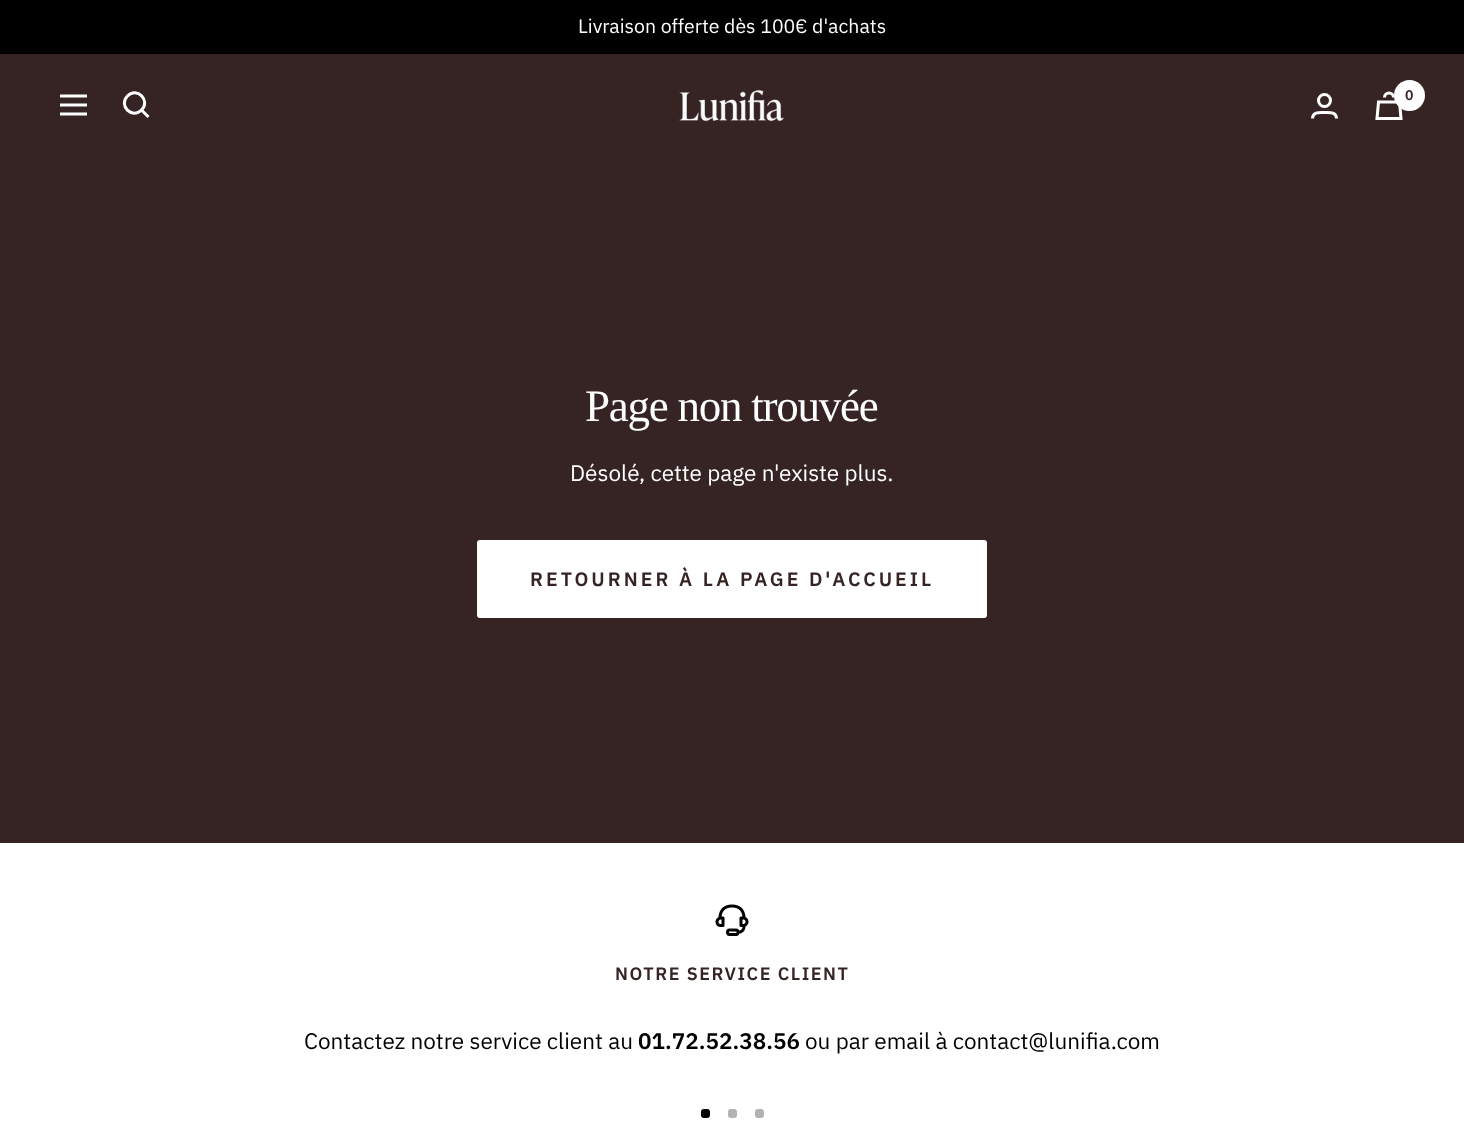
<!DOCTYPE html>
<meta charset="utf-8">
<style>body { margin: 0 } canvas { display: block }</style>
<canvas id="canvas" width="1464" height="1125"></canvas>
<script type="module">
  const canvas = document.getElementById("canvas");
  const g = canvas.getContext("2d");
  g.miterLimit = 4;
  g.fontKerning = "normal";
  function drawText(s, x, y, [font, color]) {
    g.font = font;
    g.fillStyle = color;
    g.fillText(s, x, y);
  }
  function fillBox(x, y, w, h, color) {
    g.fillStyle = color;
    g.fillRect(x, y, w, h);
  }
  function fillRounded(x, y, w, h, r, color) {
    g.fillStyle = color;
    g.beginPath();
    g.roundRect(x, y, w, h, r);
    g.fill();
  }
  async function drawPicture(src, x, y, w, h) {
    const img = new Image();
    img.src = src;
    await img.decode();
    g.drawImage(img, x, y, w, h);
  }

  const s1 = ["19.5px IBM Plex Sans", "#FFFFFF"];
  const s2 = ["600 14px IBM Plex Sans", "#362424"];
  const s3 = ["45px Liberation Serif", "#FFFFFF"];
  const s4 = ["22.5px IBM Plex Sans", "#FFFFFF"];
  const s5 = ["600 19.5px IBM Plex Sans", "#362424"];
  const s6 = ["600 18px IBM Plex Sans", "#362424"];
  const s7 = ["22.5px IBM Plex Sans", "#000000"];
  const s8 = ["600 22.5px IBM Plex Sans", "#000000"];

  fillBox(0, 0, 1464, 1125, "#FFFFFF");
  fillBox(0, 0, 1464, 54, "#000000");
  drawText("Livraison offerte dès 100€ d'achats", 578, 33, s1);
  fillBox(0, 54, 1464, 789, "#362424");
  g.beginPath();
  g.moveTo(60, 96);
  g.lineTo(87, 96);
  g.moveTo(60, 114);
  g.lineTo(87, 114);
  g.closePath();
  g.moveTo(60, 105);
  g.lineTo(87, 105);
  g.closePath();
  g.strokeStyle = "#FFFFFF";
  g.lineWidth = 3;
  g.stroke();
  g.beginPath();
  g.moveTo(141.5, 110);
  g.bezierCurveTo(151, 100.5, 137, 86.5, 127.5, 96);
  g.bezierCurveTo(118, 105.5, 132, 119.5, 141.5, 110);
  g.closePath();
  g.moveTo(141.5, 110);
  g.lineTo(148.5, 117);
  g.stroke();
  await drawPicture("pic1.png", 679, 90, 105, 32);
  g.beginPath();
  g.arc(1324.5, 100.5, 6, 0, Math.PI * 2);
  g.stroke();
  g.beginPath();
  g.moveTo(1312.5, 118.5);
  g.bezierCurveTo(1312.5, 111.5, 1320, 112.5, 1324.5, 112.5);
  g.bezierCurveTo(1329, 112.5, 1336.5, 111.5, 1336.5, 118.5);
  g.stroke();
  g.beginPath();
  g.moveTo(1378.5, 102);
  g.lineTo(1399.5, 102);
  g.lineTo(1401, 118.5);
  g.lineTo(1377, 118.5);
  g.closePath();
  g.moveTo(1393.5, 97.5);
  g.bezierCurveTo(1393.5, 91.5, 1384.5, 91.5, 1384.5, 97.5);
  g.stroke();
  g.fillStyle = "#FFFFFF";
  g.beginPath();
  g.arc(1409.5, 95.5, 15.5, 0, Math.PI * 2);
  g.fill();
  drawText("0", 1405, 100, s2);
  g.letterSpacing = "-1.25px";
  drawText("Page non trouvée", 585, 421, s3);
  g.letterSpacing = "0px";
  drawText("Désolé, cette page n'existe plus.", 570, 481, s4);
  fillRounded(477, 540, 510, 78, 3, "#FFFFFF");
  g.letterSpacing = "3px";
  drawText("RETOURNER À LA PAGE D'ACCUEIL", 530, 586, s5);
  await drawPicture("pic2.png", 715, 904, 34, 32);
  g.letterSpacing = "1.5px";
  drawText("NOTRE SERVICE CLIENT", 615, 980, s6);
  g.letterSpacing = "0px";
  drawText("Contactez notre service client au", 304, 1049, s7);
  drawText("01.72.52.38.56", 638, 1049, s8);
  drawText("ou par email à contact@lunifia.com", 805, 1049, s7);
  fillRounded(701, 1109, 9, 9, 3, "#000000");
  fillRounded(728, 1109, 9, 9, 3, "#B3B3B3");
  fillRounded(755, 1109, 9, 9, 3, "#B3B3B3");
</script>
